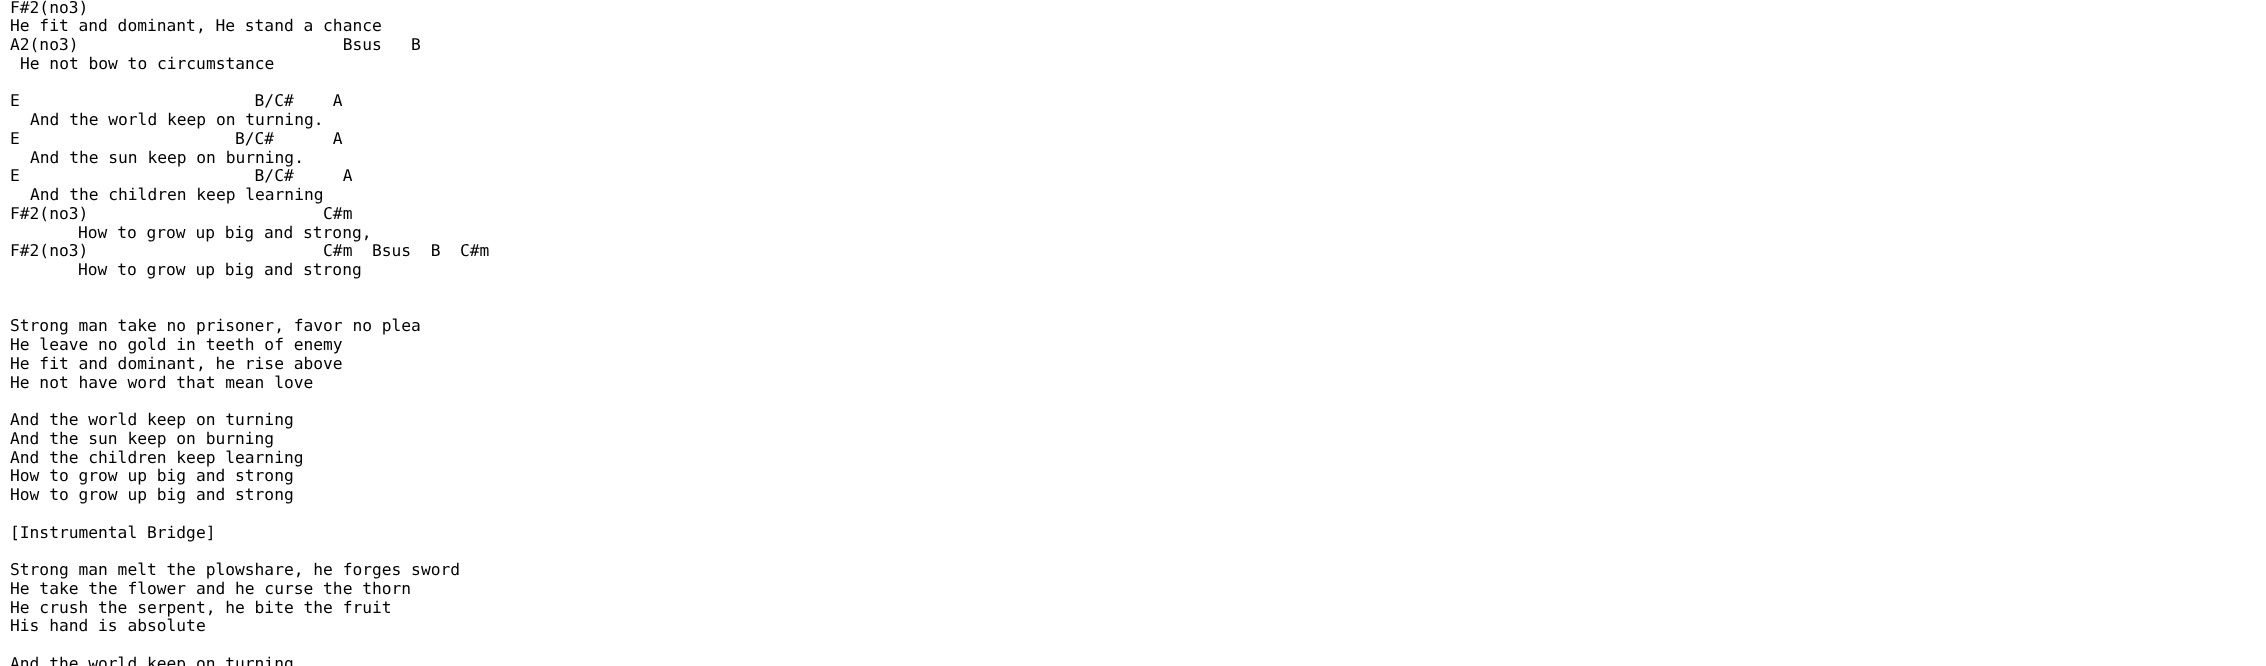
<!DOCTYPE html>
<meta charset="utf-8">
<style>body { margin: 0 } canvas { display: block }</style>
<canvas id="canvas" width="2266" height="666"></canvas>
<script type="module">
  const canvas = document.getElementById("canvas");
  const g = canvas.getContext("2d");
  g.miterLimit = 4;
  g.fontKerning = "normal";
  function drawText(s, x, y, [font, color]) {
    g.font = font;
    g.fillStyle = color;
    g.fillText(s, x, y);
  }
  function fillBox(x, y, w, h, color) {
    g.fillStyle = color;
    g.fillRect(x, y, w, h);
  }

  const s1 = ["16.25px DejaVu Sans Mono", "#000000"];

  fillBox(0, 0, 2266, 666, "#FFFFFF");
  drawText("F#2(no3)", 10, 13, s1);
  drawText("He fit and dominant, He stand a chance", 10, 31, s1);
  drawText("A2(no3)                           Bsus   B", 10, 50, s1);
  drawText("He not bow to circumstance", 20, 69, s1);
  drawText("E                        B/C#    A", 10, 106, s1);
  drawText("And the world keep on turning.", 30, 125, s1);
  drawText("E                      B/C#      A", 10, 144, s1);
  drawText("And the sun keep on burning.", 30, 163, s1);
  drawText("E                        B/C#     A", 10, 181, s1);
  drawText("And the children keep learning", 30, 200, s1);
  drawText("F#2(no3)                        C#m", 10, 219, s1);
  drawText("How to grow up big and strong,", 78, 238, s1);
  drawText("F#2(no3)                        C#m  Bsus  B  C#m", 10, 256, s1);
  drawText("How to grow up big and strong", 78, 275, s1);
  drawText("Strong man take no prisoner, favor no plea", 10, 331, s1);
  drawText("He leave no gold in teeth of enemy", 10, 350, s1);
  drawText("He fit and dominant, he rise above", 10, 369, s1);
  drawText("He not have word that mean love", 10, 388, s1);
  drawText("And the world keep on turning", 10, 425, s1);
  drawText("And the sun keep on burning", 10, 444, s1);
  drawText("And the children keep learning", 10, 463, s1);
  drawText("How to grow up big and strong", 10, 481, s1);
  drawText("How to grow up big and strong", 10, 500, s1);
  drawText("[Instrumental Bridge]", 10, 538, s1);
  drawText("Strong man melt the plowshare, he forges sword", 10, 575, s1);
  drawText("He take the flower and he curse the thorn", 10, 594, s1);
  drawText("He crush the serpent, he bite the fruit", 10, 613, s1);
  drawText("His hand is absolute", 10, 631, s1);
  drawText("And the world keep on turning", 10, 669, s1);
</script>
